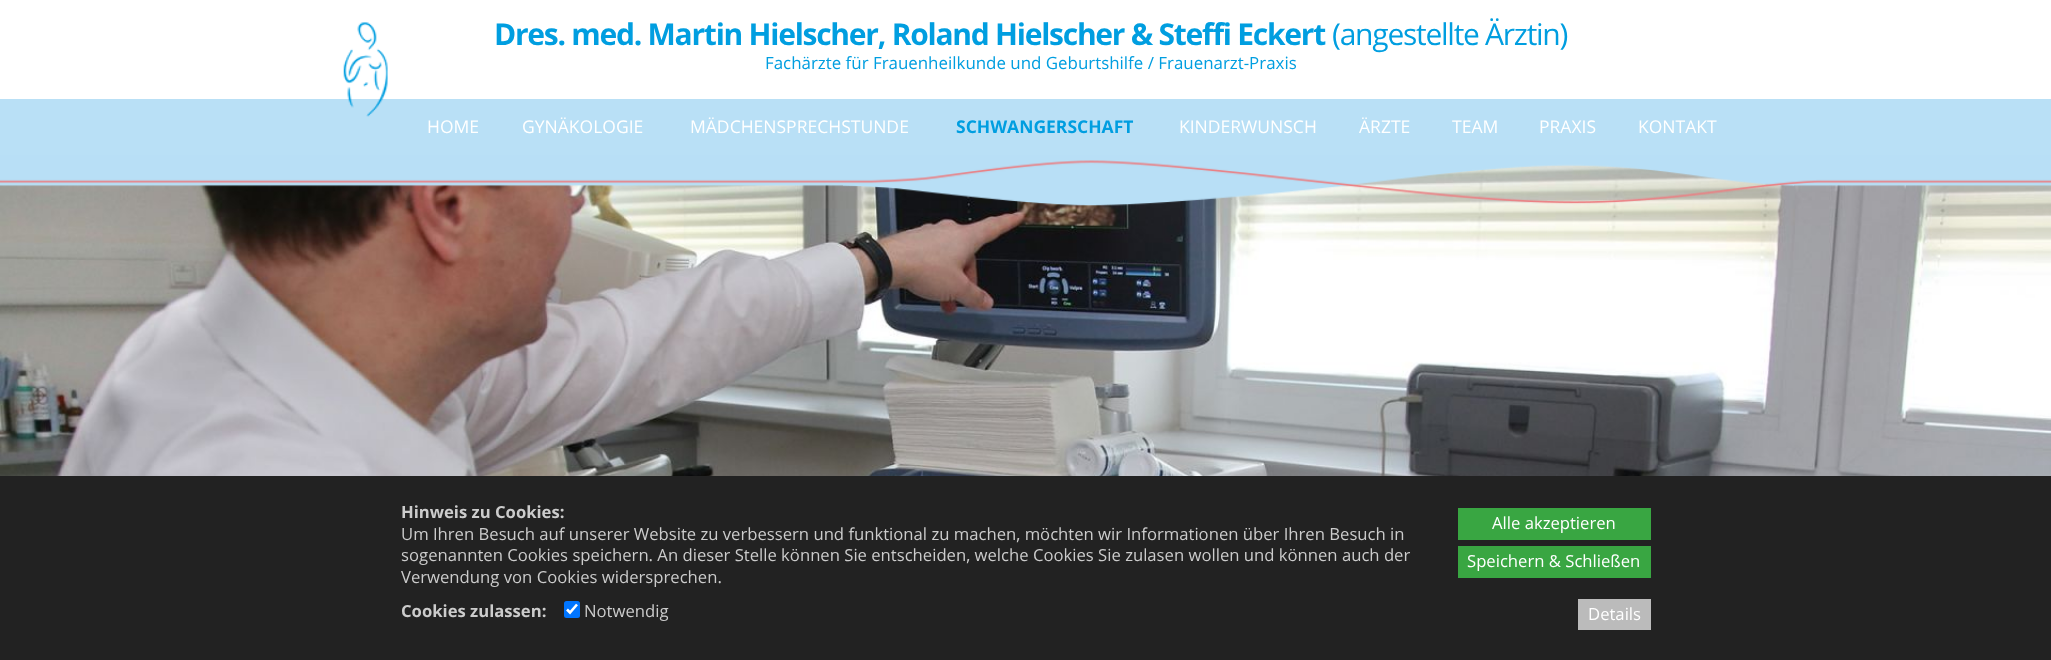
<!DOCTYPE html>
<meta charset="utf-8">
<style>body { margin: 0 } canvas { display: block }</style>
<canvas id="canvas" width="2051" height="660"></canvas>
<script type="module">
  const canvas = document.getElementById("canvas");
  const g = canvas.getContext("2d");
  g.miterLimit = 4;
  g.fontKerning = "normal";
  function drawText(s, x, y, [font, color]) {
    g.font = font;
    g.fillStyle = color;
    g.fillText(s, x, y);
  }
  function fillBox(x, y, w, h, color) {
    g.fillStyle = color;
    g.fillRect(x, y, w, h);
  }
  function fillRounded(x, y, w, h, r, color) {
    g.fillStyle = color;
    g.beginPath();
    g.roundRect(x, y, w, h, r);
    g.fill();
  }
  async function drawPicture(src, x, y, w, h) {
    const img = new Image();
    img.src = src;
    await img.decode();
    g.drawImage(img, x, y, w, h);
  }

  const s1 = ["bold 30px Open Sans", "#009EE0"];
  const s2 = ["30px Open Sans", "#009EE0"];
  const s3 = ["16.9px Open Sans", "#009EE0"];
  const s4 = ["17.5px Open Sans", "#FFFFFF"];
  const s5 = ["bold 17.5px Open Sans", "#009EE0"];
  const s6 = ["bold 16.67px Open Sans", "#CCCCCC"];
  const s7 = ["16.67px Open Sans", "#CCCCCC"];
  const s8 = ["16.67px Open Sans", "#FFFFFF"];

  fillBox(0, 0, 2051, 660, "#FFFFFF");
  fillBox(0, 99, 2051, 56, "#B9E0F6");
  await drawPicture("pic1.png", 343, 22, 45, 95);
  g.letterSpacing = "-1.25px";
  drawText("Dres. med. Martin Hielscher, Roland Hielscher & Steffi Eckert", 494, 45, s1);
  drawText("(angestellte Ärztin)", 1332, 45, s2);
  g.letterSpacing = "0px";
  drawText("Fachärzte für Frauenheilkunde und Geburtshilfe / Frauenarzt-Praxis", 765, 69, s3);
  drawText("HOME", 427, 133, s4);
  drawText("GYNÄKOLOGIE", 522, 133, s4);
  drawText("MÄDCHENSPRECHSTUNDE", 690, 133, s4);
  drawText("SCHWANGERSCHAFT", 956, 133, s5);
  drawText("KINDERWUNSCH", 1179, 133, s4);
  drawText("ÄRZTE", 1359, 133, s4);
  drawText("TEAM", 1452, 133, s4);
  drawText("PRAXIS", 1539, 133, s4);
  drawText("KONTAKT", 1638, 133, s4);
  await drawPicture("pic3.png", 0, 164, 2051, 312);
  await drawPicture("pic2.png", 0, 155, 2051, 51);
  fillBox(0, 476, 2051, 184, "#222222");
  drawText("Hinweis zu Cookies:", 401, 518, s6);
  drawText("Um Ihren Besuch auf unserer Website zu verbessern und funktional zu machen, möchten wir Informationen über Ihren Besuch in", 401, 540, s7);
  drawText("sogenannten Cookies speichern. An dieser Stelle können Sie entscheiden, welche Cookies Sie zulasen wollen und können auch der", 401, 561, s7);
  drawText("Verwendung von Cookies widersprechen.", 401, 583, s7);
  fillBox(1458, 508, 193, 32, "#39A642");
  drawText("Alle akzeptieren", 1492, 529, s8);
  fillBox(1458, 546, 193, 32, "#39A642");
  drawText("Speichern & Schließen", 1467, 567, s8);
  drawText("Cookies zulassen:", 401, 617, s6);
  fillRounded(564, 601, 16, 17, 2.5, "#0075FF");
  g.beginPath();
  g.moveTo(567, 609.5);
  g.lineTo(570, 612.5);
  g.lineTo(577, 604.5);
  g.strokeStyle = "#FFFFFF";
  g.lineWidth = 2.6;
  g.stroke();
  drawText("Notwendig", 584, 617, s7);
  fillBox(1578, 599, 73, 31, "#BBBBBB");
  drawText("Details", 1588, 620, s8);
</script>
